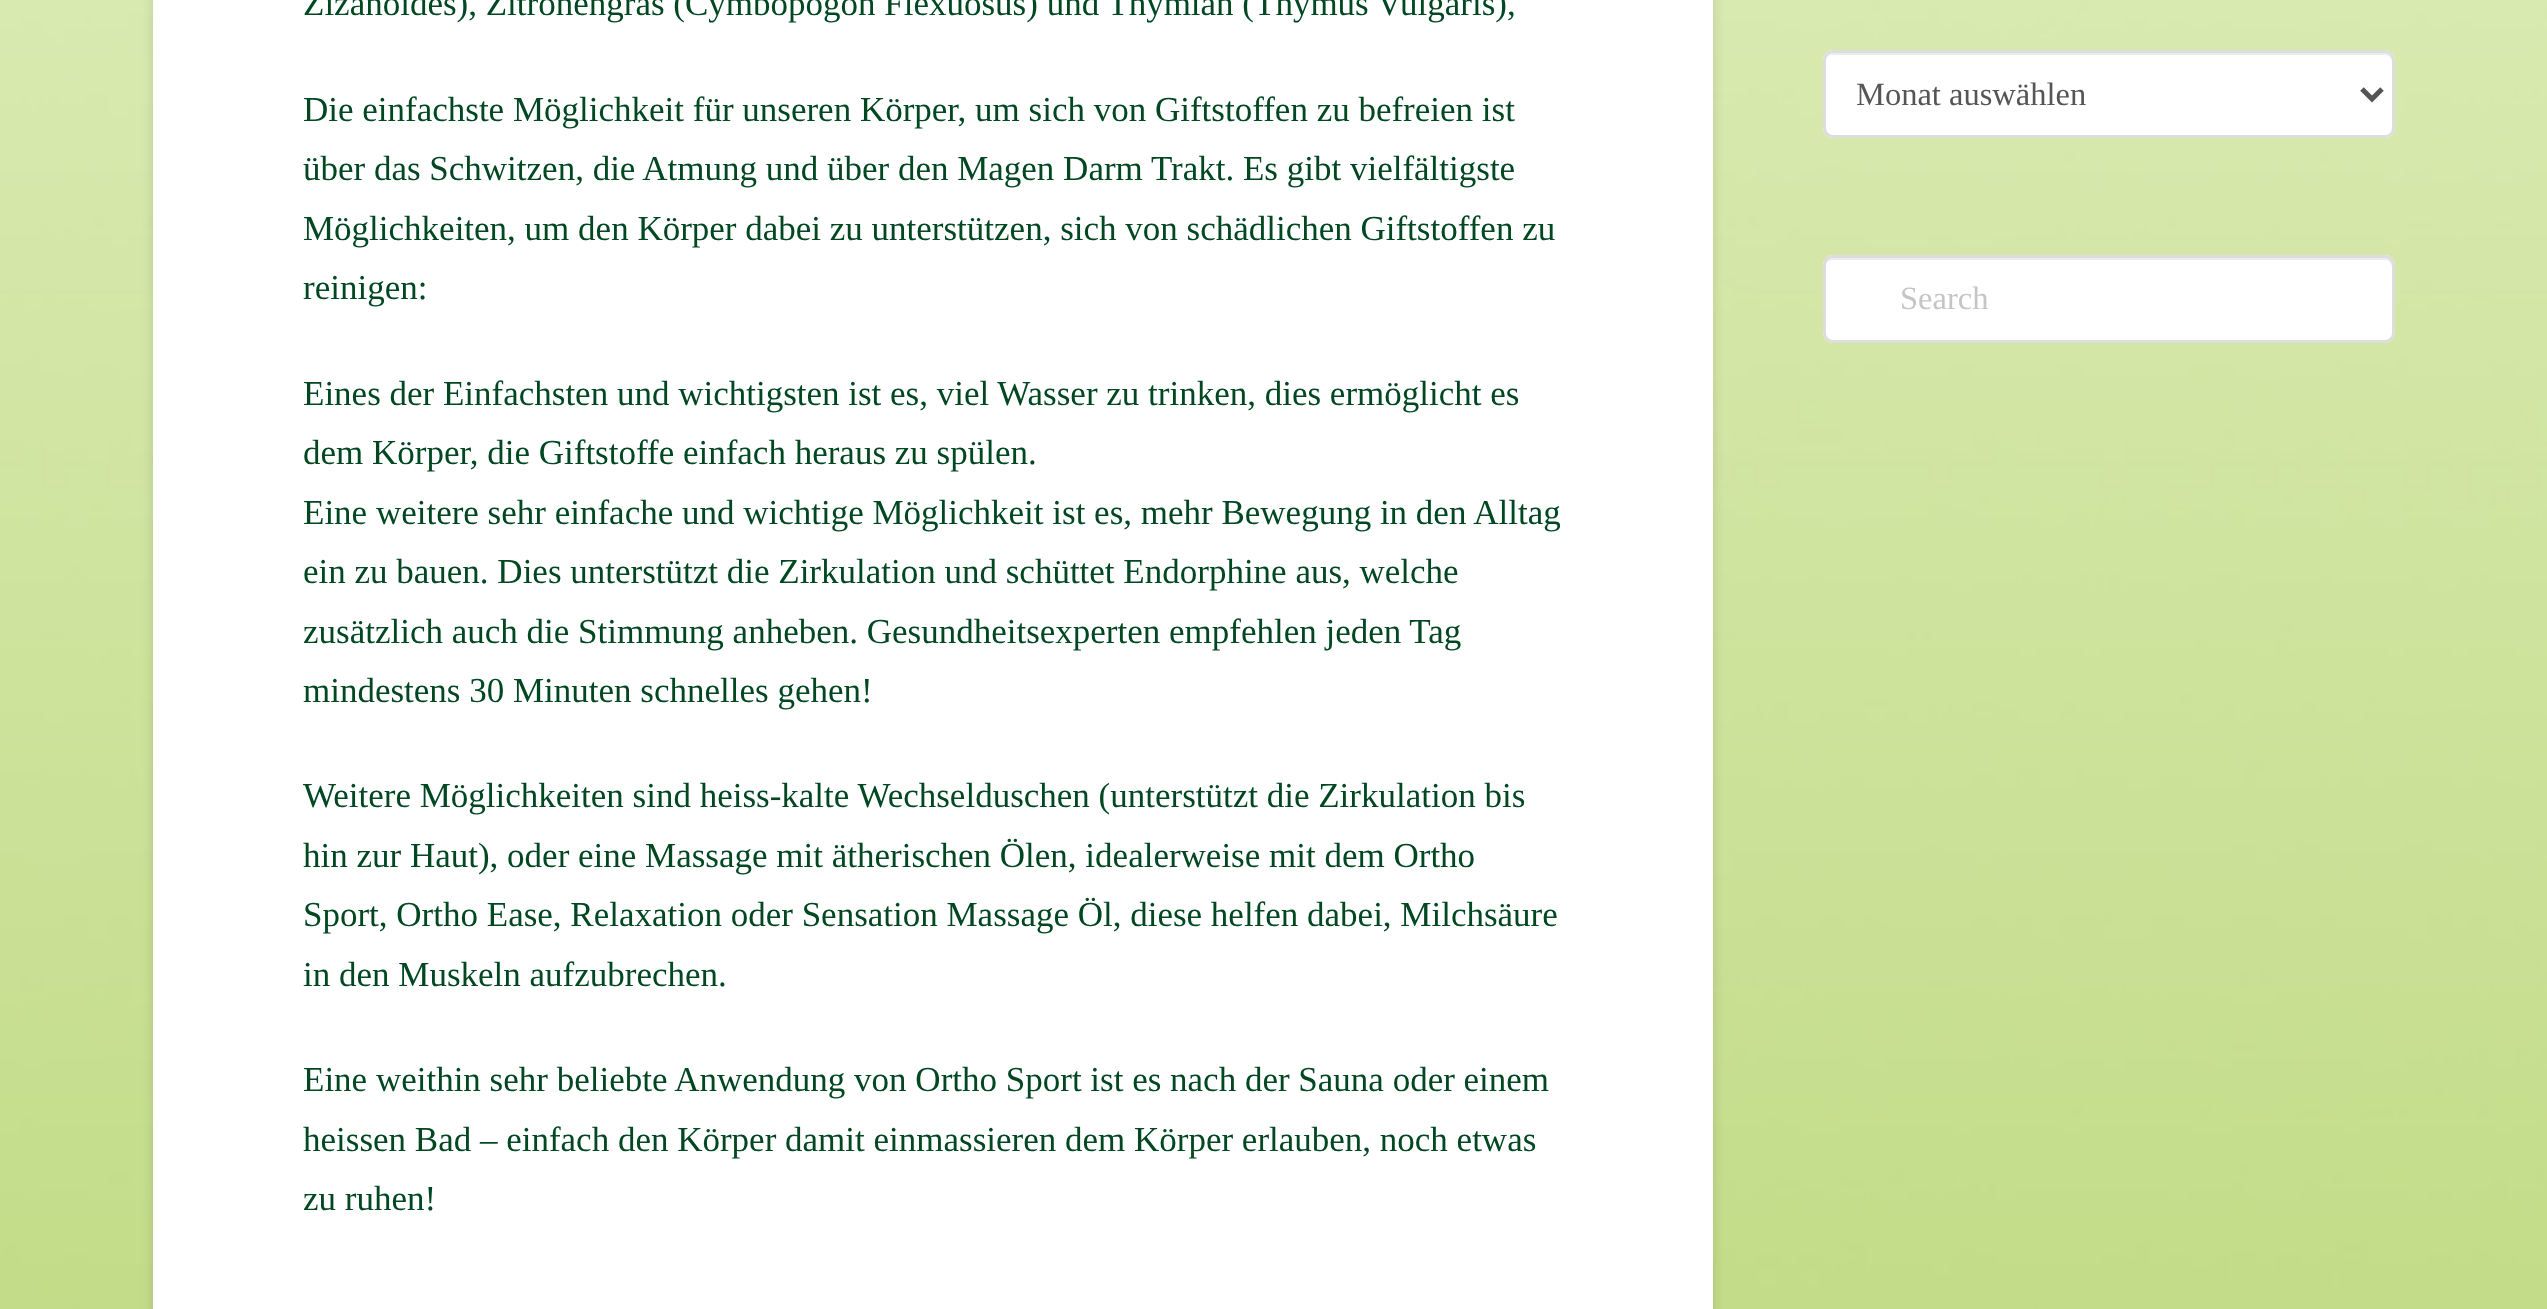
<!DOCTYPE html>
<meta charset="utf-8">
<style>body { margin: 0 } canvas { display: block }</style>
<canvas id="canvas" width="2547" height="1309"></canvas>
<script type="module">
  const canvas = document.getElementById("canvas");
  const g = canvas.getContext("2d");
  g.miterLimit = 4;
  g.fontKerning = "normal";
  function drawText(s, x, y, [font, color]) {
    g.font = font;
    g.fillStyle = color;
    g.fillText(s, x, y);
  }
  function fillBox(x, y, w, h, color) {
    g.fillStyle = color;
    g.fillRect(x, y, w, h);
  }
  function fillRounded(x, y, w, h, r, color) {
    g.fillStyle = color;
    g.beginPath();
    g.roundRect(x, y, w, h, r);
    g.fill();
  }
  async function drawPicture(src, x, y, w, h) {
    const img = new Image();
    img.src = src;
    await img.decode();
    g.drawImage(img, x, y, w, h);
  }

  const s1 = ["35px Liberation Serif", "#014722"];
  const s2 = ["32.5px Liberation Serif", "#555555"];
  const s3 = ["32.5px Liberation Serif", "#C5C5C5"];

  fillBox(0, 0, 2547, 1309, "#FFFFFF");
  await drawPicture("pic1.png", 0, 0, 2547, 1309);
  g.fillStyle = "rgba(0, 0, 0, 0.13)";
  g.filter = "blur(6px)";
  g.beginPath();
  g.roundRect(153, -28, 1560, 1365, 10);
  g.fill();
  g.filter = "none";
  fillBox(153, 0, 1560, 1309, "#FFFFFF");
  drawText("Zizanoides), Zitronengras (Cymbopogon Flexuosus) und Thymian (Thymus Vulgaris),", 303, 15, s1);
  drawText("Die einfachste Möglichkeit für unseren Körper, um sich von Giftstoffen zu befreien ist", 303, 121, s1);
  drawText("über das Schwitzen, die Atmung und über den Magen Darm Trakt. Es gibt vielfältigste", 303, 180, s1);
  drawText("Möglichkeiten, um den Körper dabei zu unterstützen, sich von schädlichen Giftstoffen zu", 303, 240, s1);
  drawText("reinigen:", 303, 299, s1);
  drawText("Eines der Einfachsten und wichtigsten ist es, viel Wasser zu trinken, dies ermöglicht es", 303, 405, s1);
  drawText("dem Körper, die Giftstoffe einfach heraus zu spülen.", 303, 464, s1);
  drawText("Eine weitere sehr einfache und wichtige Möglichkeit ist es, mehr Bewegung in den Alltag", 303, 524, s1);
  drawText("ein zu bauen. Dies unterstützt die Zirkulation und schüttet Endorphine aus, welche", 303, 583, s1);
  drawText("zusätzlich auch die Stimmung anheben. Gesundheitsexperten empfehlen jeden Tag", 303, 643, s1);
  drawText("mindestens 30 Minuten schnelles gehen!", 303, 702, s1);
  drawText("Weitere Möglichkeiten sind heiss-kalte Wechselduschen (unterstützt die Zirkulation bis", 303, 807, s1);
  drawText("hin zur Haut), oder eine Massage mit ätherischen Ölen, idealerweise mit dem Ortho", 303, 867, s1);
  drawText("Sport, Ortho Ease, Relaxation oder Sensation Massage Öl, diese helfen dabei, Milchsäure", 303, 926, s1);
  drawText("in den Muskeln aufzubrechen.", 303, 986, s1);
  drawText("Eine weithin sehr beliebte Anwendung von Ortho Sport ist es nach der Sauna oder einem", 303, 1091, s1);
  drawText("heissen Bad – einfach den Körper damit einmassieren dem Körper erlauben, noch etwas", 303, 1151, s1);
  drawText("zu ruhen!", 303, 1210, s1);
  fillRounded(1823, 50, 572, 88, 10, "#FFFFFF");
  g.fillStyle = "#ECECEC";
  g.beginPath();
  g.moveTo(1832, 55);
  g.lineTo(2385, 55);
  g.bezierCurveTo(2389, 55, 2392, 58, 2392, 62);
  g.lineTo(2392, 131);
  g.bezierCurveTo(2393, 130, 2393, 128, 2393, 127);
  g.lineTo(2393, 61);
  g.bezierCurveTo(2393, 57, 2389, 53, 2385, 53);
  g.lineTo(1833, 53);
  g.bezierCurveTo(1829, 53, 1825, 57, 1825, 61);
  g.lineTo(1825, 62);
  g.bezierCurveTo(1825, 58, 1828, 55, 1832, 55);
  g.closePath();
  g.fill();
  g.beginPath();
  g.roundRect(1824.5, 51.5, 569, 85, 8.5);
  g.strokeStyle = "#DDDDDD";
  g.lineWidth = 3;
  g.stroke();
  g.beginPath();
  g.moveTo(2362, 89);
  g.lineTo(2372, 99);
  g.lineTo(2382, 89);
  g.strokeStyle = "#555555";
  g.lineWidth = 5;
  g.stroke();
  drawText("Monat auswählen", 1856, 105, s2);
  fillRounded(1823, 255, 572, 88, 10, "#FFFFFF");
  g.fillStyle = "#ECECEC";
  g.beginPath();
  g.moveTo(1832, 260);
  g.lineTo(2385, 260);
  g.bezierCurveTo(2389, 260, 2392, 263, 2392, 268);
  g.lineTo(2392, 336);
  g.bezierCurveTo(2393, 335, 2393, 333, 2393, 332);
  g.lineTo(2393, 266);
  g.bezierCurveTo(2393, 262, 2389, 258, 2385, 258);
  g.lineTo(1833, 258);
  g.bezierCurveTo(1829, 258, 1825, 262, 1825, 266);
  g.lineTo(1825, 268);
  g.bezierCurveTo(1825, 263, 1828, 260, 1832, 260);
  g.closePath();
  g.fill();
  g.beginPath();
  g.roundRect(1824.5, 256.5, 569, 85, 8.5);
  g.strokeStyle = "#DDDDDD";
  g.lineWidth = 3;
  g.stroke();
  drawText("Search", 1900, 309, s3);
</script>
